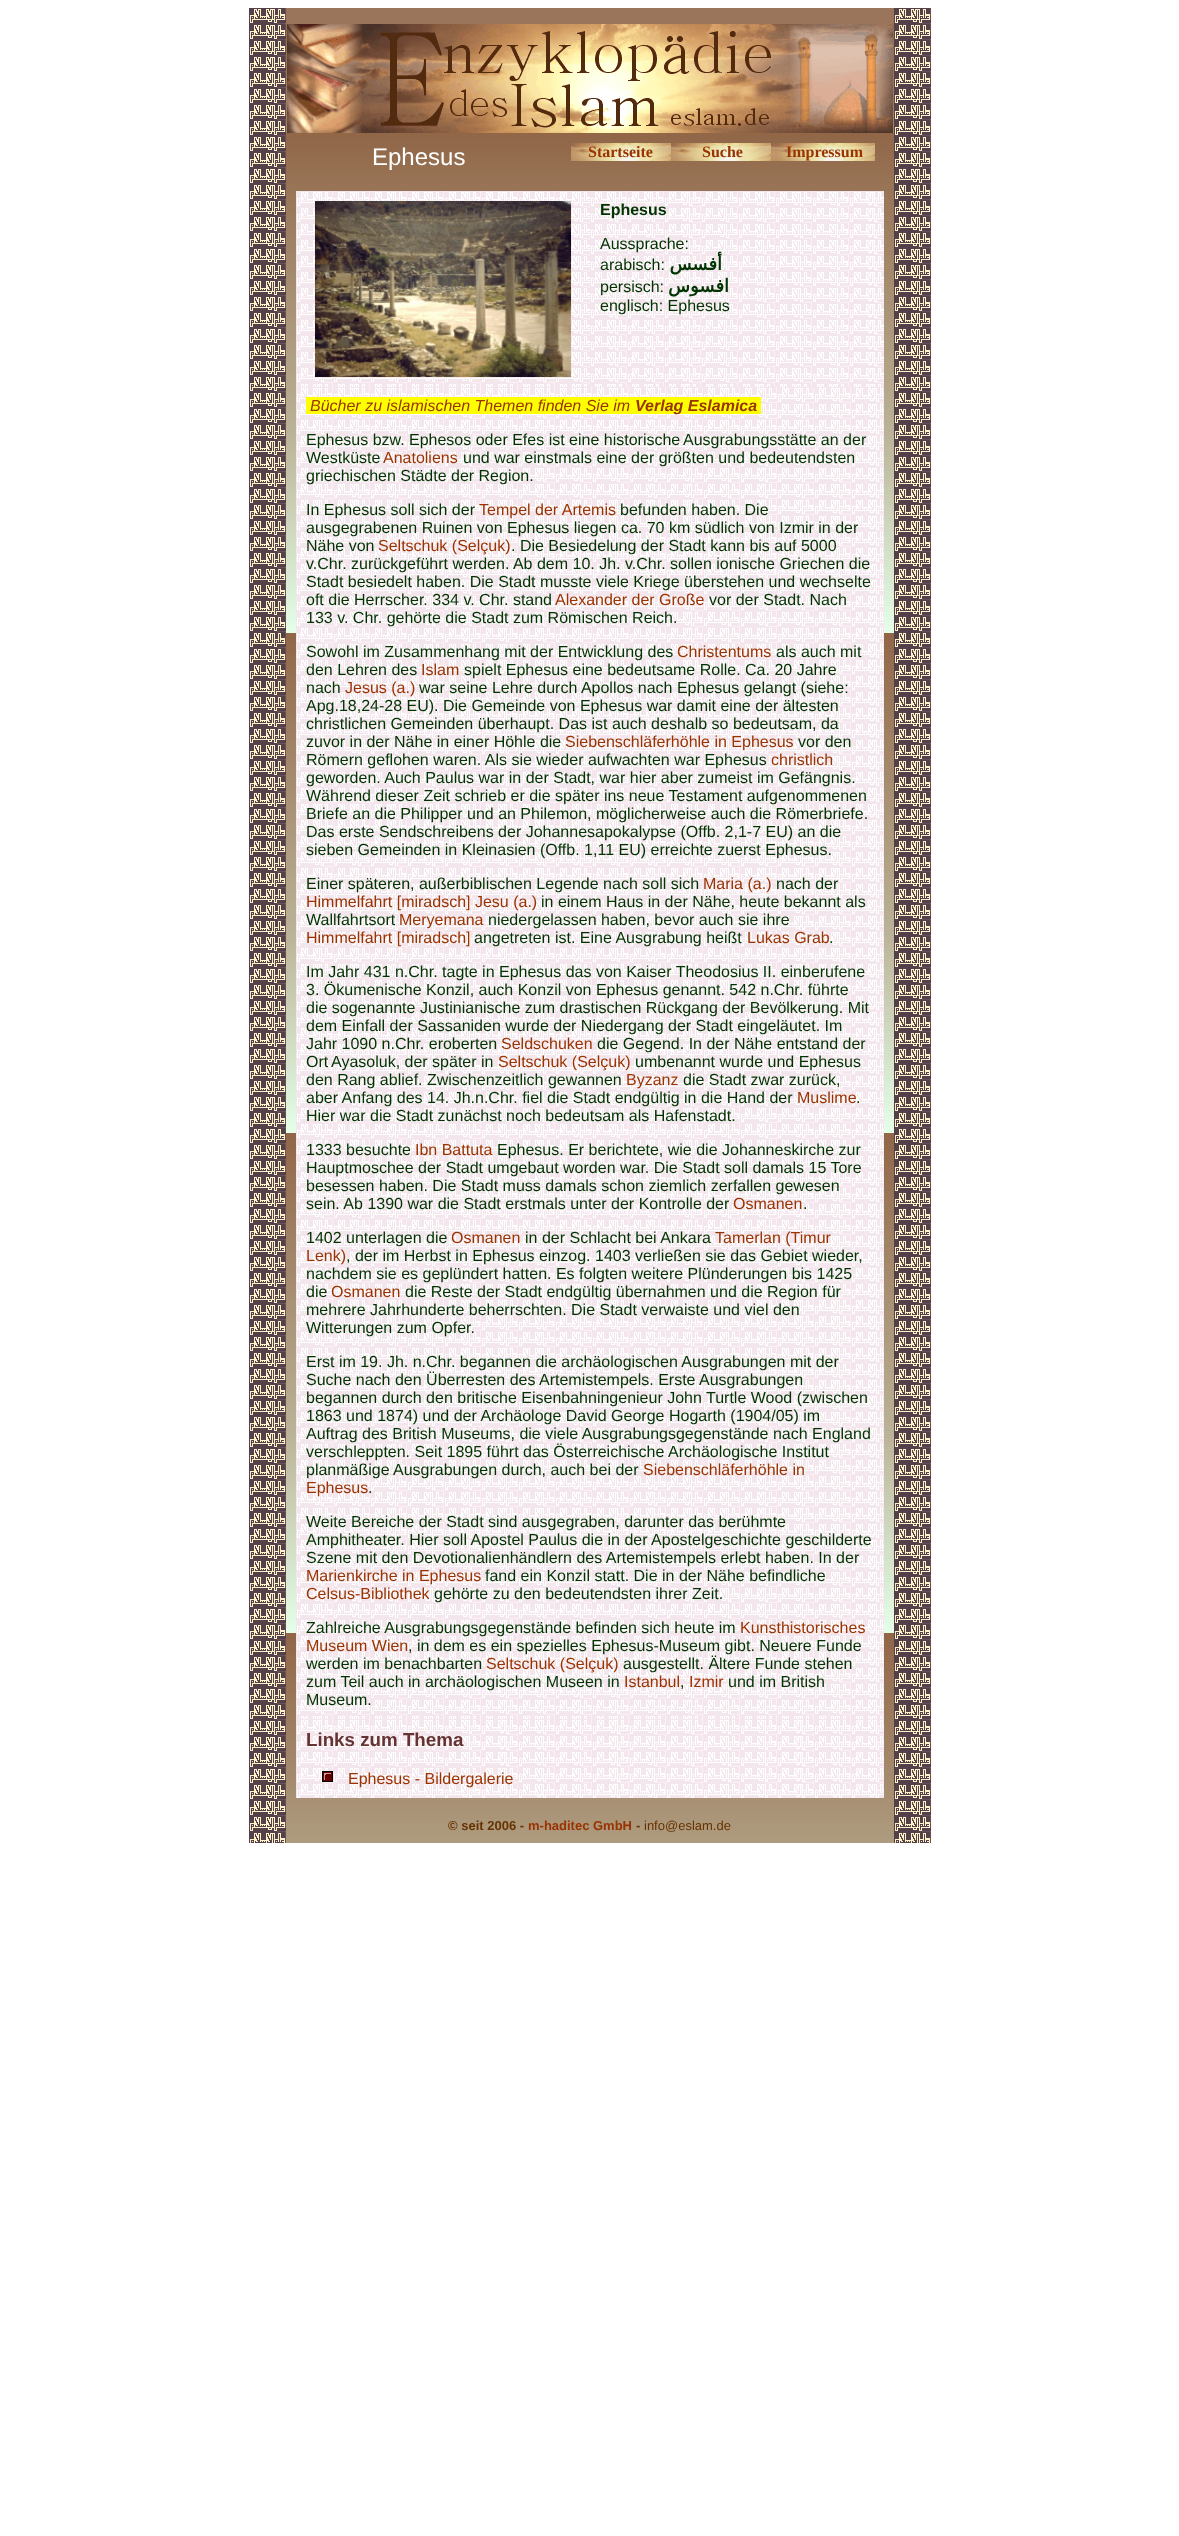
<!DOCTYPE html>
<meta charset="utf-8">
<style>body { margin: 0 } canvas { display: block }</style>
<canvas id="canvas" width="1179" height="2536"></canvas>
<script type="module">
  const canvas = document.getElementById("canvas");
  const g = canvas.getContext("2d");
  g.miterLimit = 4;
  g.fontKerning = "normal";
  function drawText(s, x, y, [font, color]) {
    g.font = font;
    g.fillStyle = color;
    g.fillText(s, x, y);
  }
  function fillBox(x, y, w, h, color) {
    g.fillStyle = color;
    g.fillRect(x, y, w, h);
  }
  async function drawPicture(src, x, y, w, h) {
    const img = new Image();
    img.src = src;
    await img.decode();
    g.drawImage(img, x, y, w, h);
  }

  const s1 = ["24px Liberation Sans", "#FFFFFF"];
  const s2 = ["bold 16px Liberation Serif", "#993300"];
  const s3 = ["bold 16px Liberation Sans", "#003300"];
  const s4 = ["16px Liberation Sans", "#003300"];
  const s5 = ["bold 18px DejaVu Sans", "#003300"];
  const s6 = ["italic 16px Liberation Sans", "#993300"];
  const s7 = ["italic bold 16px Liberation Sans", "#993300"];
  const s8 = ["16px Liberation Sans", "#993300"];
  const s9 = ["bold 18.75px Liberation Sans", "#663333"];
  const s10 = ["bold 13px Liberation Sans", "#663300"];
  const s11 = ["bold 13px Liberation Sans", "#993300"];
  const s12 = ["13px Liberation Sans", "#663300"];

  fillBox(0, 0, 1179, 2536, "#FFFFFF");
  await drawPicture("pic1.png", 286, 24, 608, 109);
  await drawPicture("pic2.png", 249, 8, 37, 16);
  fillBox(286, 8, 608, 16, "#9B755B");
  await drawPicture("pic2.png", 894, 8, 37, 16);
  await drawPicture("pic3.png", 249, 24, 37, 1819);
  await drawPicture("pic4.png", 287, 24, 606, 109);
  await drawPicture("pic3.png", 894, 24, 37, 1819);
  await drawPicture("pic5.png", 286, 133, 608, 1710);
  drawText("Ephesus", 372, 165, s1);
  await drawPicture("pic6.png", 571, 143, 100, 18);
  drawText("Startseite", 588, 157, s2);
  await drawPicture("pic7.png", 671, 143, 104, 18);
  drawText("Suche", 702, 157, s2);
  await drawPicture("pic6.png", 775, 143, 100, 18);
  drawText("Impressum", 786, 157, s2);
  await drawPicture("pic8.png", 296, 191, 294, 196);
  await drawPicture("pic9.png", 315, 201, 256, 176);
  await drawPicture("pic8.png", 590, 191, 294, 196);
  drawText("Ephesus", 600, 215, s3);
  drawText("Aussprache:", 600, 249, s4);
  drawText("arabisch:", 600, 270, s4);
  g.direction = "rtl";
  drawText("أفسس", 722, 270, s5);
  g.direction = "ltr";
  drawText("persisch:", 600, 292, s4);
  g.direction = "rtl";
  drawText("افسوس", 729, 292, s5);
  g.direction = "ltr";
  drawText("englisch: Ephesus", 600, 311, s4);
  await drawPicture("pic10.png", 296, 387, 588, 1332);
  fillBox(306, 397, 455, 17, "#FFFF00");
  drawText("Bücher zu islamischen Themen finden Sie im", 310, 411, s6);
  drawText("Verlag Eslamica", 635, 411, s7);
  drawText("Ephesus bzw.", 306, 445, s4);
  drawText("Ephesos oder Efes ist eine historische", 409, 445, s4);
  drawText("Ausgrabungsstätte an der", 683, 445, s4);
  drawText("Westküste", 306, 463, s4);
  drawText("Anatoliens", 383, 463, s8);
  drawText("und war einstmals eine der größten und bedeutendsten", 463, 463, s4);
  drawText("griechischen Städte der Region.", 306, 481, s4);
  drawText("In Ephesus soll sich der", 306, 515, s4);
  drawText("Tempel der Artemis", 479, 515, s8);
  drawText("befunden haben. Die", 620, 515, s4);
  drawText("ausgegrabenen Ruinen von Ephesus liegen ca. 70 km südlich von Izmir in der", 306, 533, s4);
  drawText("Nähe von", 306, 551, s4);
  drawText("Seltschuk (Selçuk)", 378, 551, s8);
  drawText(". Die Besiedelung der Stadt kann bis auf 5000", 511, 551, s4);
  drawText("v.Chr. zurückgeführt werden. Ab dem 10. Jh. v.Chr. sollen ionische Griechen die", 306, 569, s4);
  drawText("Stadt besiedelt haben. Die Stadt musste viele Kriege überstehen und wechselte", 306, 587, s4);
  drawText("oft die", 306, 605, s4);
  drawText("Herrscher. 334 v. Chr. stand", 354, 605, s4);
  drawText("Alexander der Große", 555, 605, s8);
  drawText("vor der Stadt. Nach", 709, 605, s4);
  drawText("133 v. Chr. gehörte die Stadt zum Römischen Reich.", 306, 623, s4);
  drawText("Sowohl im Zusammenhang mit der Entwicklung des", 306, 657, s4);
  drawText("Christentums", 677, 657, s8);
  drawText("als auch mit", 776, 657, s4);
  drawText("den Lehren des", 306, 675, s4);
  drawText("Islam", 421, 675, s8);
  drawText("spielt Ephesus eine bedeutsame Rolle. Ca. 20 Jahre", 464, 675, s4);
  drawText("nach", 306, 693, s4);
  drawText("Jesus (a.)", 345, 693, s8);
  drawText("war seine Lehre durch Apollos nach Ephesus gelangt (siehe:", 419, 693, s4);
  drawText("Apg.18,24-28 EU). Die Gemeinde von Ephesus war damit eine der ältesten", 306, 711, s4);
  drawText("christlichen Gemeinden überhaupt. Das ist auch deshalb so bedeutsam, da", 306, 729, s4);
  drawText("zuvor in der Nähe in einer Höhle die", 306, 747, s4);
  drawText("Siebenschläferhöhle in Ephesus", 565, 747, s8);
  drawText("vor den", 798, 747, s4);
  drawText("Römern geflohen waren. Als sie wieder aufwachten war Ephesus", 306, 765, s4);
  drawText("christlich", 771, 765, s8);
  drawText("geworden. Auch Paulus war in der Stadt, war hier aber zumeist im Gefängnis.", 306, 783, s4);
  drawText("Während dieser Zeit schrieb er die später ins neue Testament aufgenommenen", 306, 801, s4);
  drawText("Briefe an die Philipper und an Philemon, möglicherweise auch die Römerbriefe.", 306, 819, s4);
  drawText("Das erste Sendschreibens der Johannesapokalypse (Offb. 2,1-7 EU) an die", 306, 837, s4);
  drawText("sieben Gemeinden in Kleinasien (Offb. 1,11 EU) erreichte zuerst Ephesus.", 306, 855, s4);
  drawText("Einer späteren, außerbiblischen Legende nach soll sich", 306, 889, s4);
  drawText("Maria (a.)", 703, 889, s8);
  drawText("nach der", 776, 889, s4);
  drawText("Himmelfahrt [miradsch] Jesu (a.)", 306, 907, s8);
  drawText("in einem Haus in der Nähe, heute bekannt als", 541, 907, s4);
  drawText("Wallfahrtsort", 306, 925, s4);
  drawText("Meryemana", 399, 925, s8);
  drawText("niedergelassen haben, bevor auch sie ihre", 488, 925, s4);
  drawText("Himmelfahrt [miradsch]", 306, 943, s8);
  drawText("angetreten ist. Eine Ausgrabung heißt", 474, 943, s4);
  drawText("Lukas Grab", 747, 943, s8);
  drawText(".", 829, 943, s4);
  drawText("Im Jahr 431 n.Chr. tagte in Ephesus das von Kaiser Theodosius II. einberufene", 306, 977, s4);
  drawText("3. Ökumenische Konzil, auch Konzil von Ephesus genannt. 542 n.Chr. führte", 306, 995, s4);
  drawText("die sogenannte Justinianische zum drastischen Rückgang der Bevölkerung. Mit", 306, 1013, s4);
  drawText("dem Einfall der Sassaniden wurde der Niedergang der Stadt eingeläutet. Im", 306, 1031, s4);
  drawText("Jahr 1090 n.Chr. eroberten", 306, 1049, s4);
  drawText("Seldschuken", 501, 1049, s8);
  drawText("die Gegend. In der Nähe entstand der", 597, 1049, s4);
  drawText("Ort", 306, 1067, s4);
  drawText("Ayasoluk, der später in", 331, 1067, s4);
  drawText("Seltschuk (Selçuk)", 498, 1067, s8);
  drawText("umbenannt wurde und Ephesus", 635, 1067, s4);
  drawText("den Rang ablief. Zwischenzeitlich gewannen", 306, 1085, s4);
  drawText("Byzanz", 626, 1085, s8);
  drawText("die Stadt zwar zurück,", 683, 1085, s4);
  drawText("aber Anfang des 14. Jh.n.Chr. fiel die Stadt endgültig in die Hand der", 306, 1103, s4);
  drawText("Muslime", 797, 1103, s8);
  drawText(".", 856, 1103, s4);
  drawText("Hier war die Stadt zunächst noch bedeutsam als Hafenstadt.", 306, 1121, s4);
  drawText("1333 besuchte", 306, 1155, s4);
  drawText("Ibn Battuta", 415, 1155, s8);
  drawText("Ephesus. Er berichtete, wie die Johanneskirche zur", 497, 1155, s4);
  drawText("Hauptmoschee der Stadt umgebaut worden war. Die Stadt soll damals 15 Tore", 306, 1173, s4);
  drawText("besessen haben. Die Stadt muss damals schon ziemlich zerfallen gewesen", 306, 1191, s4);
  drawText("sein. Ab 1390 war die Stadt erstmals unter der Kontrolle der", 306, 1209, s4);
  drawText("Osmanen", 733, 1209, s8);
  drawText(".", 803, 1209, s4);
  drawText("1402 unterlagen die", 306, 1243, s4);
  drawText("Osmanen", 451, 1243, s8);
  drawText("in der Schlacht bei Ankara", 525, 1243, s4);
  drawText("Tamerlan (Timur", 715, 1243, s8);
  drawText("Lenk)", 306, 1261, s8);
  drawText(", der im Herbst in Ephesus einzog. 1403 verließen sie das Gebiet wieder,", 346, 1261, s4);
  drawText("nachdem sie es geplündert hatten. Es folgten weitere Plünderungen bis 1425", 306, 1279, s4);
  drawText("die", 306, 1297, s4);
  drawText("Osmanen", 331, 1297, s8);
  drawText("die Reste der Stadt endgültig übernahmen und die Region für", 405, 1297, s4);
  drawText("mehrere Jahrhunderte beherrschten. Die Stadt verwaiste und viel den", 306, 1315, s4);
  drawText("Witterungen zum Opfer.", 306, 1333, s4);
  drawText("Erst im 19. Jh. n.Chr. begannen die archäologischen Ausgrabungen mit der", 306, 1367, s4);
  drawText("Suche nach den Überresten des", 306, 1385, s4);
  drawText("Artemistempels. Erste Ausgrabungen", 539, 1385, s4);
  drawText("begannen durch den britische Eisenbahningenieur John Turtle Wood (zwischen", 306, 1403, s4);
  drawText("1863 und 1874) und der Archäologe David George Hogarth (1904/05) im", 306, 1421, s4);
  drawText("Auftrag des British Museums, die viele Ausgrabungsgegenstände nach England", 306, 1439, s4);
  drawText("verschleppten. Seit 1895 führt das Österreichische Archäologische Institut", 306, 1457, s4);
  drawText("planmäßige", 306, 1475, s4);
  drawText("Ausgrabungen durch, auch bei der", 393, 1475, s4);
  drawText("Siebenschläferhöhle in", 643, 1475, s8);
  drawText("Ephesus", 306, 1493, s8);
  drawText(".", 368, 1493, s4);
  drawText("Weite Bereiche der Stadt sind ausgegraben, darunter das berühmte", 306, 1527, s4);
  drawText("Amphitheater. Hier soll Apostel Paulus die in der Apostelgeschichte geschilderte", 306, 1545, s4);
  drawText("Szene mit den Devotionalienhändlern des Artemistempels erlebt haben. In der", 306, 1563, s4);
  drawText("Marienkirche in Ephesus", 306, 1581, s8);
  drawText("fand ein Konzil statt. Die in der Nähe befindliche", 485, 1581, s4);
  drawText("Celsus-Bibliothek", 306, 1599, s8);
  drawText("gehörte zu den bedeutendsten ihrer Zeit.", 434, 1599, s4);
  drawText("Zahlreiche Ausgrabungsgegenstände befinden sich heute im", 306, 1633, s4);
  drawText("Kunsthistorisches", 740, 1633, s8);
  drawText("Museum Wien", 306, 1651, s8);
  drawText(", in dem es ein spezielles Ephesus-Museum gibt. Neuere Funde", 408, 1651, s4);
  drawText("werden im benachbarten", 306, 1669, s4);
  drawText("Seltschuk (Selçuk)", 486, 1669, s8);
  drawText("ausgestellt. Ältere Funde stehen", 623, 1669, s4);
  drawText("zum Teil auch in archäologischen Museen in", 306, 1687, s4);
  drawText("Istanbul", 624, 1687, s8);
  drawText(",", 680, 1687, s4);
  drawText("Izmir", 689, 1687, s8);
  drawText("und im British", 728, 1687, s4);
  drawText("Museum.", 306, 1705, s4);
  await drawPicture("pic11.png", 296, 1719, 588, 79);
  drawText("Links zum Thema", 306, 1746, s9);
  await drawPicture("pic12.png", 322, 1771, 11, 11);
  drawText("Ephesus - Bildergalerie", 348, 1784, s8);
  drawText("© seit 2006 -", 448, 1830, s10);
  drawText("m-haditec GmbH", 528, 1830, s11);
  drawText("-", 636, 1830, s10);
  drawText("info@eslam.de", 644, 1830, s12);
</script>
